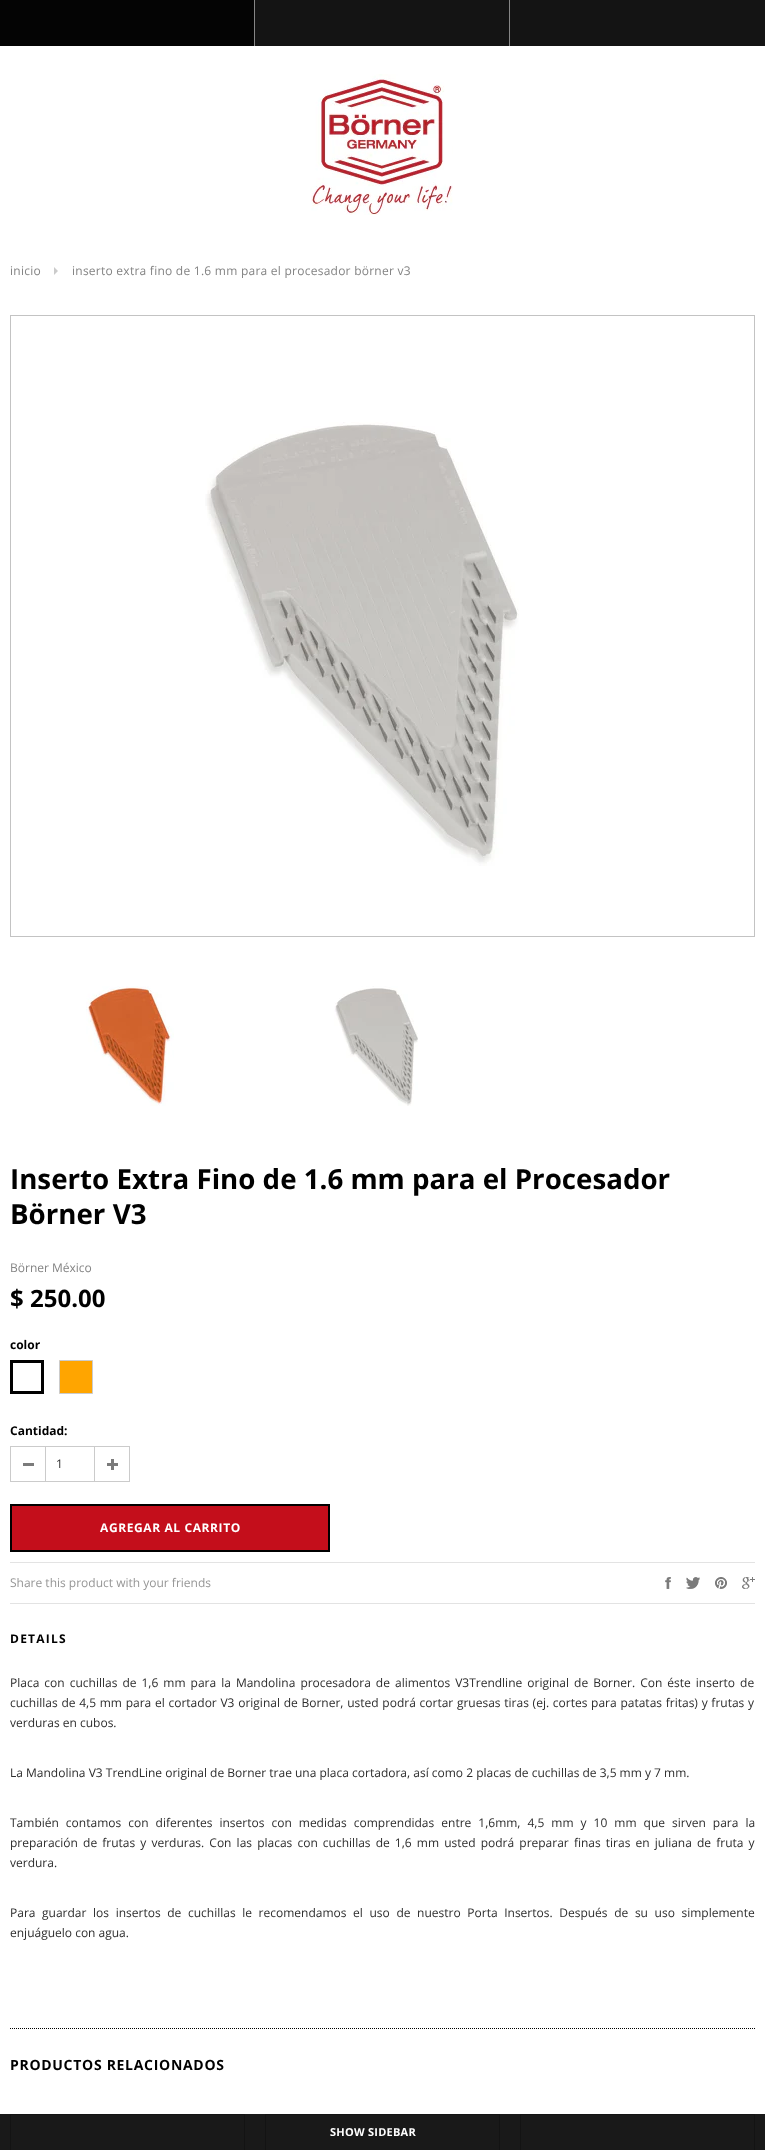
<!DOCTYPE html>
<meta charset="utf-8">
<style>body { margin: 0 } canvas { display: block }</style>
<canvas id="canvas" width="765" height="2150"></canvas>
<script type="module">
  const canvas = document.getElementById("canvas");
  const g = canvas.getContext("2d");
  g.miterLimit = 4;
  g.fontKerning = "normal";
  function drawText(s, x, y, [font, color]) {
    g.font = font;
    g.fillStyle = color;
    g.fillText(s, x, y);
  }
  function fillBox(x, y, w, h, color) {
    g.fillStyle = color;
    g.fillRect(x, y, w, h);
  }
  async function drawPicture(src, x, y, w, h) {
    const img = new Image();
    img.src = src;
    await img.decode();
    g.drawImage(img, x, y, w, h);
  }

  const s1 = ["12px Open Sans", "#848484"];
  const s2 = ["bold 27.7px Open Sans", "#000000"];
  const s3 = ["bold 24px Open Sans", "#000000"];
  const s4 = ["bold 12px Open Sans", "#000000"];
  const s5 = ["12px Open Sans", "#2D2D2D"];
  const s6 = ["bold 12px Open Sans", "#FFFFFF"];
  const s7 = ["12px Open Sans", "#969696"];
  const s8 = ["bold 14px Open Sans", "#000000"];
  const s9 = ["bold 11px Open Sans", "#FFFFFF"];

  fillBox(0, 0, 765, 2150, "#FFFFFF");
  fillBox(0, 2114, 765, 36, "#191919");
  fillBox(255, 0, 254, 46, "#141414");
  fillBox(0, 0, 254, 46, "#040404");
  fillBox(254, 0, 1, 46, "#868686");
  fillBox(509, 0, 1, 46, "#868686");
  fillBox(510, 0, 255, 46, "#141414");
  await drawPicture("pic1.png", 310, 74, 143, 141);
  g.letterSpacing = "0.25px";
  drawText("inicio", 10, 275, s1);
  g.fillStyle = "#CBCBCB";
  g.beginPath();
  g.moveTo(54, 275);
  g.lineTo(54, 267);
  g.lineTo(58, 271);
  g.closePath();
  g.fill();
  drawText("inserto extra fino de 1.6 mm para el procesador börner v3", 72, 275, s1);
  g.strokeStyle = "#C3C3C3";
  g.strokeRect(10.5, 315.5, 744, 621);
  await drawPicture("pic2.png", 205, 422, 314, 444);
  await drawPicture("pic3.png", 86, 986, 88, 120);
  await drawPicture("pic4.png", 334, 986, 84, 120);
  g.letterSpacing = "0px";
  drawText("Inserto Extra Fino de 1.6 mm para el Procesador", 10, 1189, s2);
  drawText("Börner V3", 10, 1224, s2);
  drawText("Börner México", 10, 1272, s1);
  drawText("$ 250.00", 10, 1307, s3);
  drawText("color", 10, 1349, s4);
  g.strokeStyle = "#000000";
  g.lineWidth = 3;
  g.strokeRect(11.5, 1361.5, 31, 31);
  g.fillStyle = "#FFA500";
  g.beginPath();
  g.rect(59.5, 1360.5, 33, 33);
  g.fill();
  g.strokeStyle = "#CBCBCB";
  g.lineWidth = 1;
  g.stroke();
  drawText("Cantidad:", 10, 1435, s4);
  fillBox(23, 1463, 11, 3, "#7B7B7B");
  fillBox(10, 1446, 35, 1, "#CBCBCB");
  fillBox(10, 1481, 35, 1, "#CBCBCB");
  fillBox(10, 1446, 1, 36, "#CBCBCB");
  g.strokeRect(45.5, 1446.5, 49, 35);
  drawText("1", 56, 1468, s5);
  await drawPicture("pic5.png", 107, 1459, 11, 11);
  fillBox(95, 1446, 35, 1, "#CBCBCB");
  fillBox(129, 1446, 1, 36, "#CBCBCB");
  fillBox(95, 1481, 35, 1, "#CBCBCB");
  g.fillStyle = "#C40E1B";
  g.beginPath();
  g.rect(11, 1505, 318, 46);
  g.fill();
  g.strokeStyle = "#000000";
  g.lineWidth = 2;
  g.stroke();
  g.letterSpacing = "0.6px";
  drawText("AGREGAR AL CARRITO", 100, 1532, s6);
  fillBox(10, 1562, 745, 1, "#E3E3E3");
  fillBox(10, 1603, 745, 1, "#E3E3E3");
  g.letterSpacing = "0px";
  drawText("Share this product with your friends", 10, 1587, s7);
  await drawPicture("pic6.png", 665, 1577, 6, 12);
  await drawPicture("pic7.png", 686, 1577, 14, 12);
  await drawPicture("pic8.png", 715, 1577, 12, 12);
  await drawPicture("pic9.png", 742, 1577, 13, 12);
  g.letterSpacing = "1.25px";
  drawText("DETAILS", 10, 1643, s4);
  g.letterSpacing = "0px";
  g.wordSpacing = "1.9px";
  drawText("Placa con cuchillas de 1,6 mm para la Mandolina procesadora de alimentos V3Trendline original de Borner. Con éste inserto de", 10, 1687, s5);
  g.wordSpacing = "0.6px";
  drawText("cuchillas de 4,5 mm para el cortador V3 original de Borner, usted podrá cortar gruesas tiras (ej. cortes para patatas fritas) y frutas y", 10, 1707, s5);
  g.wordSpacing = "0px";
  drawText("verduras en cubos.", 10, 1727, s5);
  drawText("La Mandolina V3 TrendLine original de Borner trae una placa cortadora, así como 2 placas de cuchillas de 3,5 mm y 7 mm.", 10, 1777, s5);
  g.wordSpacing = "3.9px";
  drawText("También contamos con diferentes insertos con medidas comprendidas entre 1,6mm, 4,5 mm y 10 mm que sirven para la", 10, 1827, s5);
  g.wordSpacing = "2px";
  drawText("preparación de frutas y verduras. Con las placas con cuchillas de 1,6 mm usted podrá preparar finas tiras en juliana de fruta y", 10, 1847, s5);
  g.wordSpacing = "0px";
  drawText("verdura.", 10, 1867, s5);
  g.wordSpacing = "3.5px";
  drawText("Para guardar los insertos de cuchillas le recomendamos el uso de nuestro Porta Insertos. Después de su uso simplemente", 10, 1917, s5);
  g.wordSpacing = "0px";
  drawText("enjuáguelo con agua.", 10, 1937, s5);
  g.beginPath();
  g.moveTo(10, 2028.5);
  g.lineTo(755, 2028.5);
  g.lineWidth = 1;
  g.setLineDash([1, 1]);
  g.stroke();
  g.letterSpacing = "0.7px";
  drawText("PRODUCTOS RELACIONADOS", 10, 2070, s8);
  g.strokeStyle = "#131313";
  g.setLineDash([]);
  g.strokeRect(10.5, 2114.5, 234, 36);
  g.strokeRect(265.5, 2114.5, 234, 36);
  g.strokeRect(520.5, 2114.5, 234, 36);
  g.letterSpacing = "0.25px";
  drawText("SHOW SIDEBAR", 330, 2136, s9);
</script>
